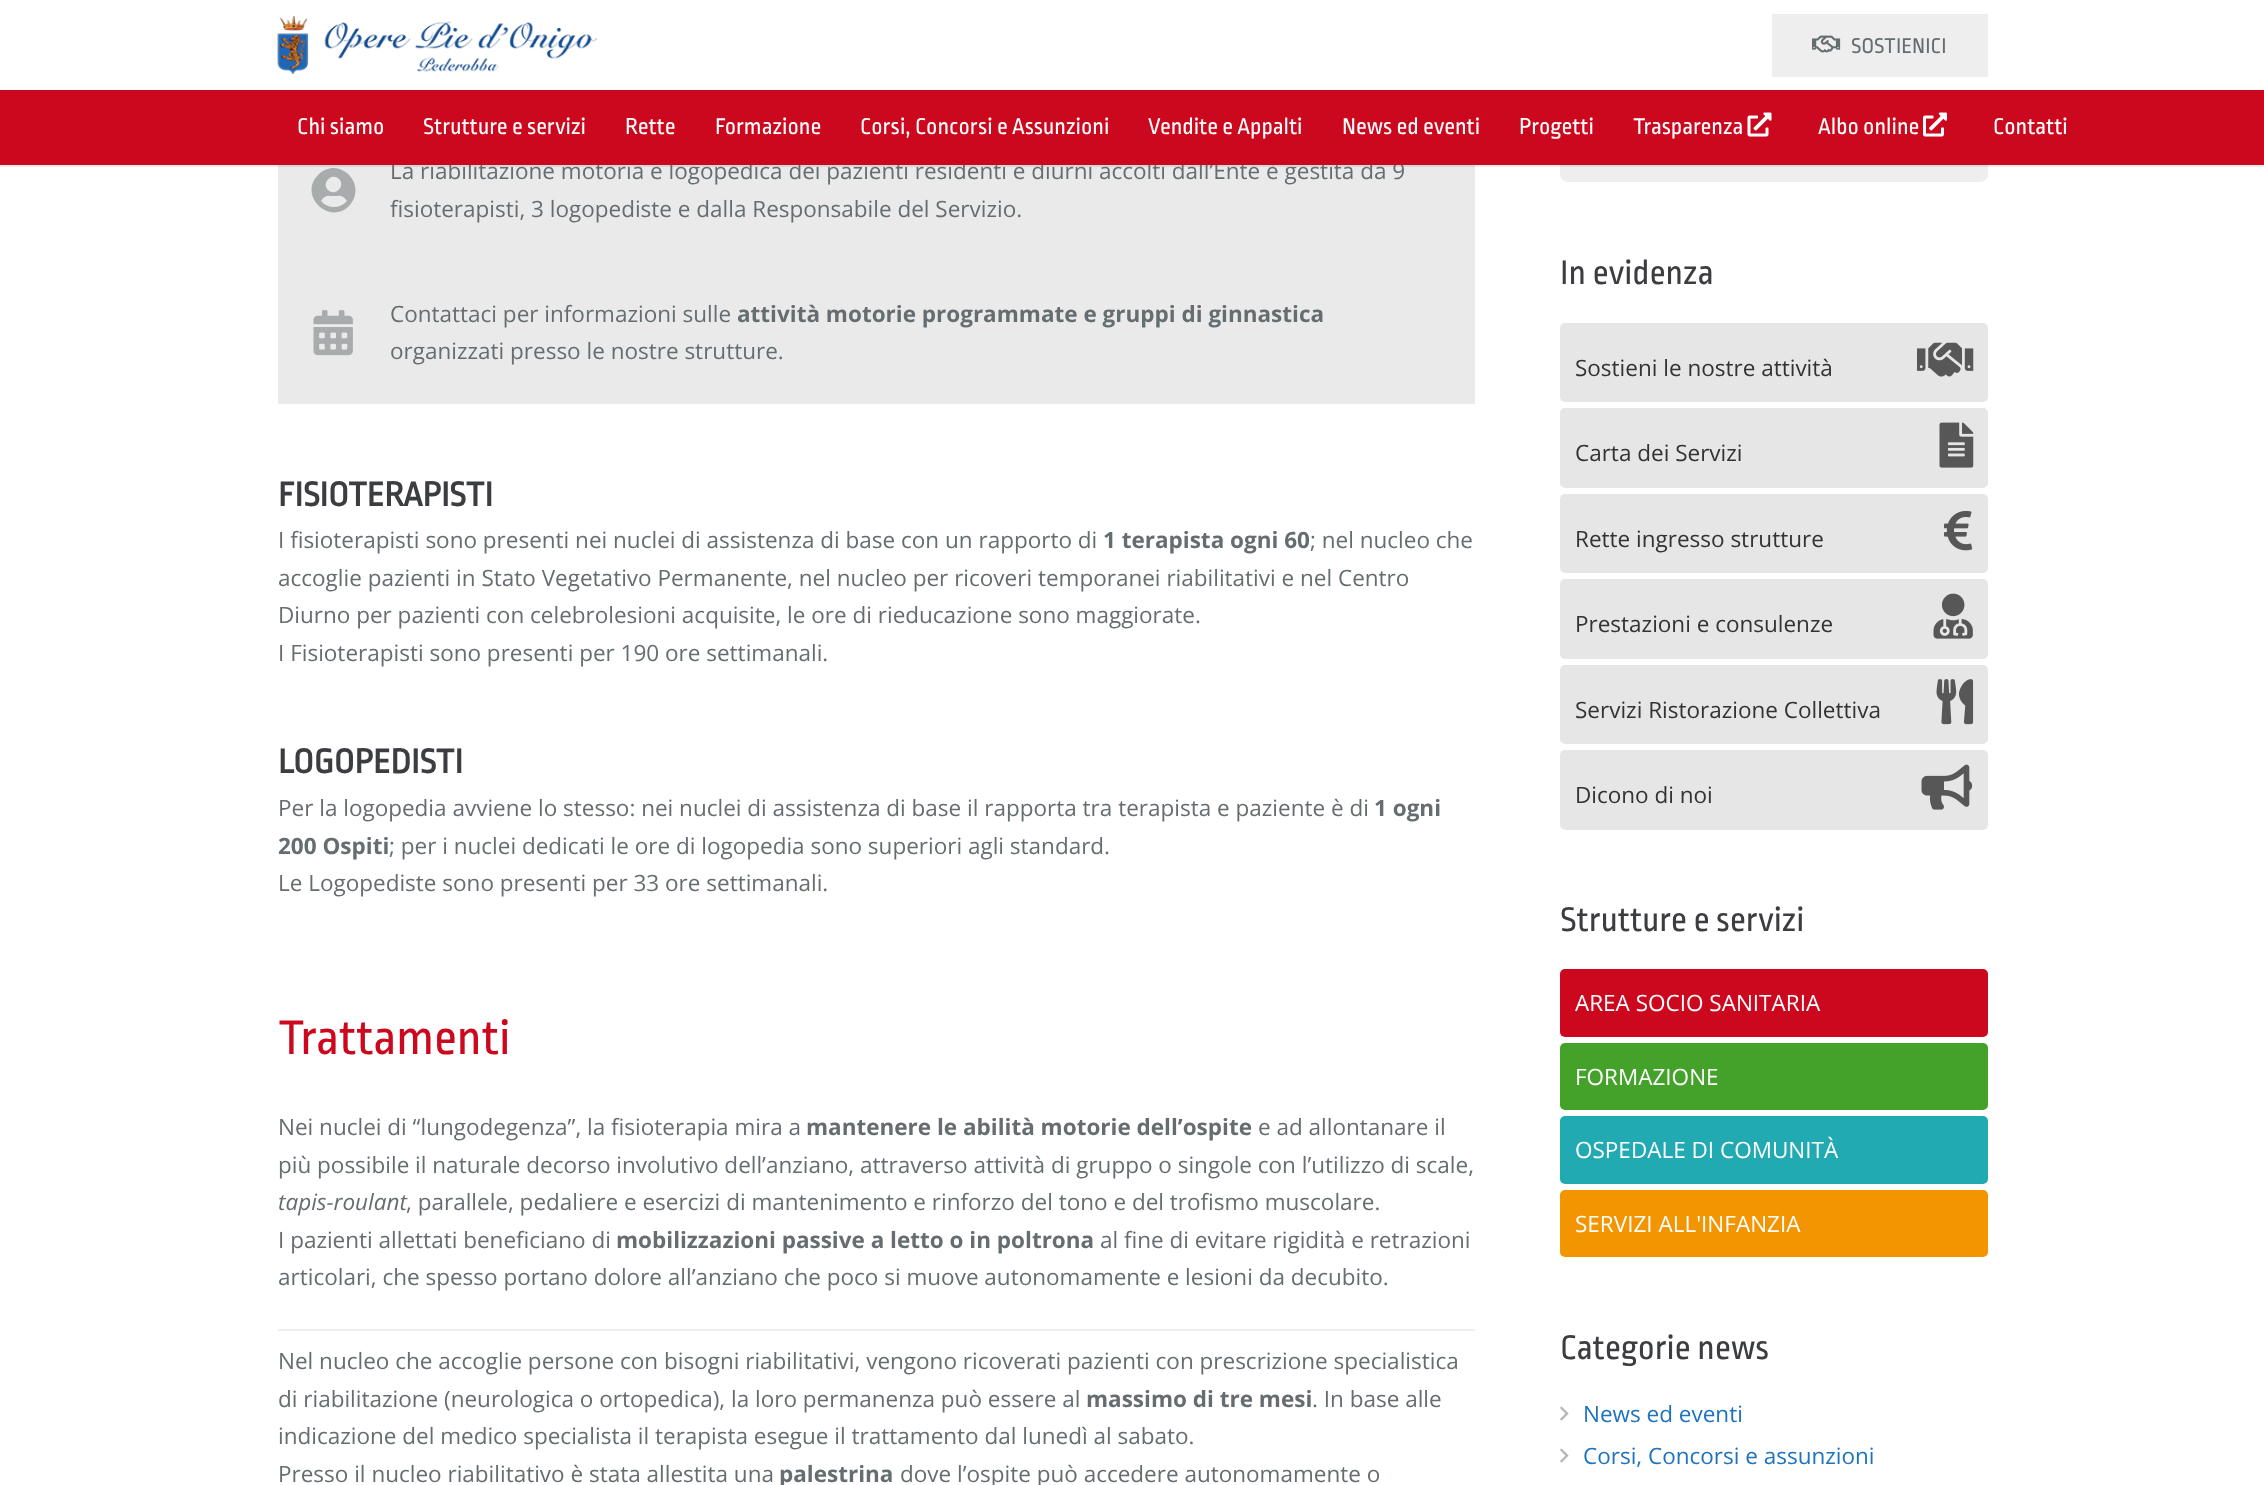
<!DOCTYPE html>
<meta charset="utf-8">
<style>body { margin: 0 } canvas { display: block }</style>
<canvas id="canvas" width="2264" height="1485"></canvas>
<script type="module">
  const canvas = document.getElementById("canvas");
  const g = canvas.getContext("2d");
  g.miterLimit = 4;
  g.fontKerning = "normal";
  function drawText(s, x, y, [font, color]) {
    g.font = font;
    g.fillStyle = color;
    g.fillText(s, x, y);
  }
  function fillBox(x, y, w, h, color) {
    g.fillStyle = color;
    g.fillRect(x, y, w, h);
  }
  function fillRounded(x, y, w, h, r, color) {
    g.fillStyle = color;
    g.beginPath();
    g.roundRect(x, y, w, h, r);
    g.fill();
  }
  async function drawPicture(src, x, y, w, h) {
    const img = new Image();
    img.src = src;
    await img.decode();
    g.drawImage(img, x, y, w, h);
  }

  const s1 = ["22.5px Ropa Sans", "#666D70"];
  const s2 = ["22.5px Open Sans", "#666D70"];
  const s3 = ["24px Ropa Sans", "#FFFFFF"];
  const s4 = ["bold 22.5px Open Sans", "#666D70"];
  const s5 = ["bold 36px Ropa Sans", "#3B3D40"];
  const s6 = ["51px Ropa Sans", "#CC081E"];
  const s7 = ["italic 22.5px Open Sans", "#666D70"];
  const s8 = ["36px Ropa Sans", "#3B3D40"];
  const s9 = ["22.5px Open Sans", "#333333"];
  const s10 = ["22.5px Open Sans", "#FFFFFF"];
  const s11 = ["22.5px Open Sans", "#1E73BE"];

  fillBox(0, 0, 2264, 1485, "#FFFFFF");
  await drawPicture("pic1.png", 277, 16, 320, 59);
  fillBox(1772, 14, 216, 63, "#EEEEEE");
  await drawPicture("pic2.png", 1812, 35, 29, 18);
  drawText("SOSTIENICI", 1851, 53, s1);
  fillBox(278, 165, 1197, 239, "#EAEAEA");
  fillRounded(1560, 119, 428, 63, 8, "#EEEEEE");
  fillBox(0, 165, 2264, 2, "rgba(0, 0, 0, 0.08)");
  drawText("La riabilitazione motoria e logopedica dei pazienti residenti e diurni accolti dall’Ente è gestita da 9", 390, 179, s2);
  fillBox(0, 90, 2264, 75, "#CC081E");
  drawText("Chi siamo", 297, 134, s3);
  drawText("Strutture e servizi", 423, 134, s3);
  drawText("Rette", 625, 134, s3);
  drawText("Formazione", 715, 134, s3);
  drawText("Corsi, Concorsi e Assunzioni", 860, 134, s3);
  drawText("Vendite e Appalti", 1148, 134, s3);
  drawText("News ed eventi", 1342, 134, s3);
  drawText("Progetti", 1519, 134, s3);
  drawText("Trasparenza", 1633, 134, s3);
  await drawPicture("pic3.png", 1747, 112, 25, 25);
  drawText("Albo online", 1818, 134, s3);
  await drawPicture("pic4.png", 1923, 112, 24, 25);
  drawText("Contatti", 1993, 134, s3);
  g.fillStyle = "#A8ACAD";
  g.beginPath();
  g.moveTo(318, 175);
  g.bezierCurveTo(339, 154, 369, 185, 349, 206);
  g.bezierCurveTo(329, 226, 298, 195, 318, 175);
  g.closePath();
  g.moveTo(339, 179);
  g.bezierCurveTo(332, 172, 321, 183, 328, 190);
  g.bezierCurveTo(335, 197, 346, 186, 339, 179);
  g.closePath();
  g.moveTo(321, 201);
  g.bezierCurveTo(328, 209, 340, 209, 347, 201);
  g.bezierCurveTo(345, 198, 341, 195, 338, 196);
  g.lineTo(334, 196);
  g.lineTo(330, 196);
  g.bezierCurveTo(326, 195, 323, 198, 321, 201);
  g.closePath();
  g.fill();
  drawText("fisioterapisti, 3 logopediste e dalla Responsabile del Servizio.", 390, 217, s2);
  await drawPicture("pic5.png", 313, 310, 40, 46);
  drawText("Contattaci per informazioni sulle", 390, 322, s2);
  drawText("attività motorie programmate e gruppi di ginnastica", 737, 322, s4);
  drawText("organizzati presso le nostre strutture.", 390, 359, s2);
  drawText("FISIOTERAPISTI", 278, 506, s5);
  drawText("I fisioterapisti sono presenti nei nuclei di assistenza di base con un rapporto di", 278, 548, s2);
  drawText("1 terapista ogni 60", 1103, 548, s4);
  drawText("; nel nucleo che", 1310, 548, s2);
  drawText("accoglie pazienti in Stato Vegetativo Permanente, nel nucleo per ricoveri temporanei riabilitativi e nel Centro", 278, 586, s2);
  drawText("Diurno per pazienti con celebrolesioni acquisite, le ore di rieducazione sono maggiorate.", 278, 623, s2);
  drawText("I Fisioterapisti sono presenti per 190 ore settimanali.", 278, 661, s2);
  drawText("LOGOPEDISTI", 278, 773, s5);
  drawText("Per la logopedia avviene lo stesso: nei nuclei di assistenza di base il rapporta tra terapista e paziente è di", 278, 816, s2);
  drawText("1 ogni", 1374, 816, s4);
  drawText("200 Ospiti", 278, 854, s4);
  drawText("; per i nuclei dedicati le ore di logopedia sono superiori agli standard.", 389, 854, s2);
  drawText("Le Logopediste sono presenti per 33 ore settimanali.", 278, 891, s2);
  drawText("Trattamenti", 278, 1054, s6);
  drawText("Nei nuclei di “lungodegenza”, la fisioterapia mira a", 278, 1135, s2);
  drawText("mantenere le abilità motorie dell’ospite", 806, 1135, s4);
  drawText("e ad allontanare il", 1258, 1135, s2);
  drawText("più possibile il naturale decorso involutivo dell’anziano, attraverso attività di gruppo o singole con l’utilizzo di scale,", 278, 1173, s2);
  drawText("tapis-roulant", 278, 1210, s7);
  drawText(", parallele, pedaliere e esercizi di mantenimento e rinforzo del tono e del trofismo muscolare.", 406, 1210, s2);
  drawText("I pazienti allettati beneficiano di", 278, 1248, s2);
  drawText("mobilizzazioni passive a letto o in poltrona", 616, 1248, s4);
  drawText("al fine di evitare rigidità e retrazioni", 1100, 1248, s2);
  drawText("articolari, che spesso portano dolore all’anziano che poco si muove autonomamente e lesioni da decubito.", 278, 1285, s2);
  fillBox(278, 1329, 1197, 2, "#EEEEEE");
  drawText("Nel nucleo che accoglie persone con bisogni riabilitativi, vengono ricoverati pazienti con prescrizione specialistica", 278, 1369, s2);
  drawText("di riabilitazione (neurologica o ortopedica), la loro permanenza può essere al", 278, 1407, s2);
  drawText("massimo di tre mesi", 1086, 1407, s4);
  drawText(". In base alle", 1312, 1407, s2);
  drawText("indicazione del medico specialista il terapista esegue il trattamento dal lunedì al sabato.", 278, 1444, s2);
  drawText("Presso il nucleo riabilitativo è stata allestita una", 278, 1482, s2);
  drawText("palestrina", 779, 1482, s4);
  drawText("dove l’ospite può accedere autonomamente o", 900, 1482, s2);
  drawText("In evidenza", 1560, 284, s8);
  fillRounded(1560, 323, 428, 79, 5, "#E6E6E6");
  drawText("Sostieni le nostre attività", 1575, 376, s9);
  await drawPicture("pic6.png", 1917, 342, 57, 35);
  fillRounded(1560, 408, 428, 80, 5, "#E6E6E6");
  drawText("Carta dei Servizi", 1575, 461, s9);
  await drawPicture("pic7.png", 1939, 422, 35, 46);
  fillRounded(1560, 494, 428, 79, 5, "#E6E6E6");
  drawText("Rette ingresso strutture", 1575, 547, s9);
  await drawPicture("pic8.png", 1944, 510, 29, 41);
  fillRounded(1560, 579, 428, 80, 5, "#E6E6E6");
  drawText("Prestazioni e consulenze", 1575, 632, s9);
  await drawPicture("pic9.png", 1933, 593, 40, 46);
  fillRounded(1560, 665, 428, 79, 5, "#E6E6E6");
  drawText("Servizi Ristorazione Collettiva", 1575, 718, s9);
  await drawPicture("pic10.png", 1936, 679, 38, 46);
  fillRounded(1560, 750, 428, 80, 5, "#E6E6E6");
  drawText("Dicono di noi", 1575, 803, s9);
  await drawPicture("pic11.png", 1921, 764, 52, 46);
  drawText("Strutture e servizi", 1560, 931, s8);
  fillRounded(1560, 969, 428, 68, 5, "#CC081E");
  drawText("AREA SOCIO SANITARIA", 1575, 1011, s10);
  fillRounded(1560, 1043, 428, 67, 5, "#44A22A");
  drawText("FORMAZIONE", 1575, 1085, s10);
  fillRounded(1560, 1116, 428, 68, 5, "#21AAB1");
  drawText("OSPEDALE DI COMUNITÀ", 1575, 1158, s10);
  fillRounded(1560, 1190, 428, 67, 5, "#F39501");
  drawText("SERVIZI ALL'INFANZIA", 1575, 1232, s10);
  drawText("Categorie news", 1560, 1359, s8);
  await drawPicture("pic12.png", 1560, 1406, 9, 15);
  drawText("News ed eventi", 1583, 1422, s11);
  await drawPicture("pic12.png", 1560, 1448, 9, 15);
  drawText("Corsi, Concorsi e assunzioni", 1583, 1464, s11);
</script>
